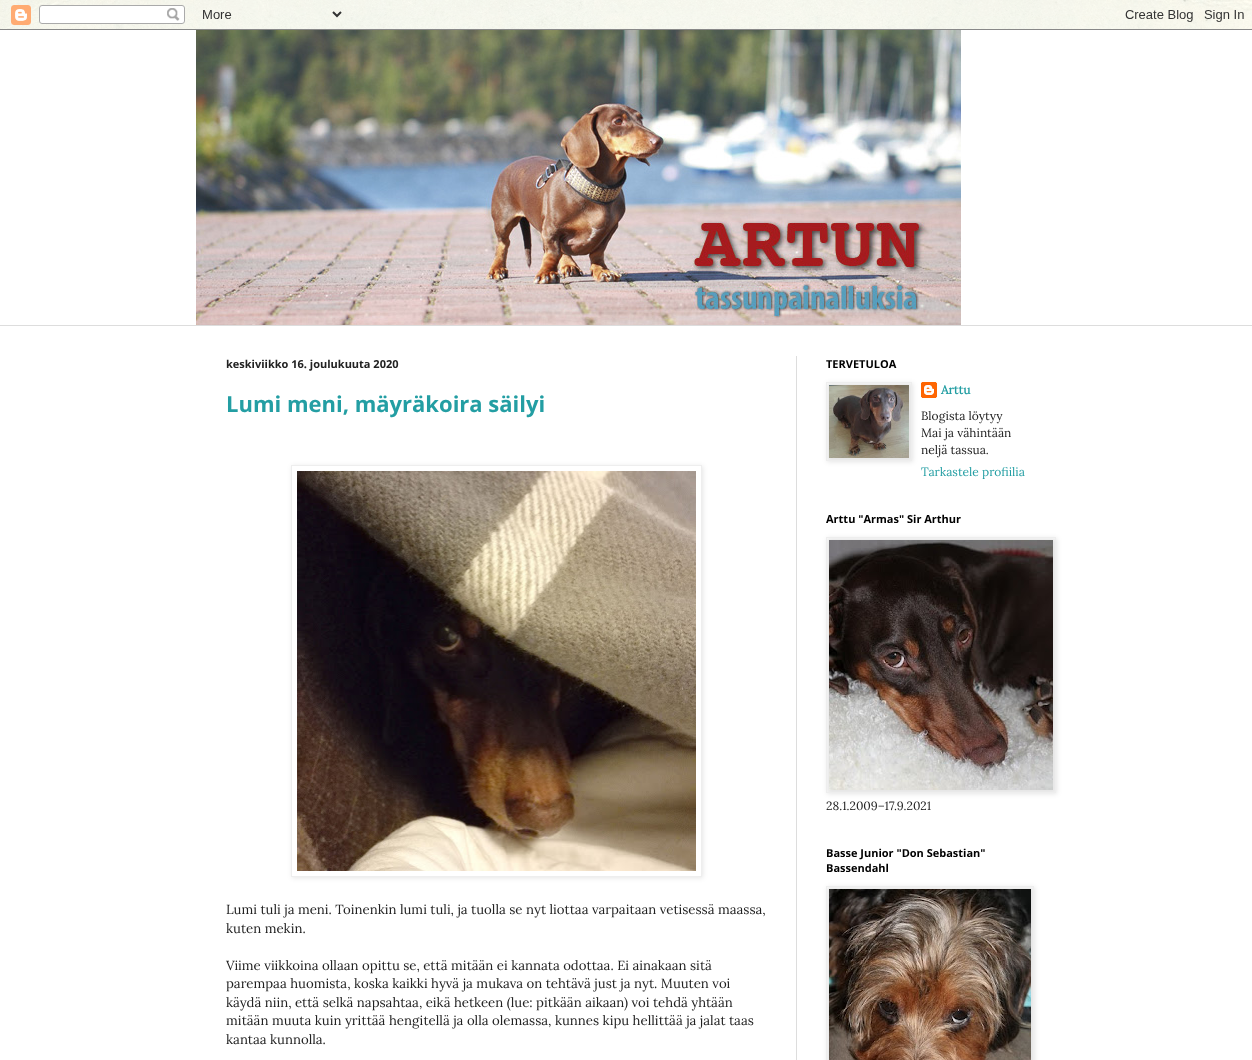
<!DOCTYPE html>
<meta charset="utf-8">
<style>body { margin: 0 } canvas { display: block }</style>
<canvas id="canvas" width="1252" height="1060"></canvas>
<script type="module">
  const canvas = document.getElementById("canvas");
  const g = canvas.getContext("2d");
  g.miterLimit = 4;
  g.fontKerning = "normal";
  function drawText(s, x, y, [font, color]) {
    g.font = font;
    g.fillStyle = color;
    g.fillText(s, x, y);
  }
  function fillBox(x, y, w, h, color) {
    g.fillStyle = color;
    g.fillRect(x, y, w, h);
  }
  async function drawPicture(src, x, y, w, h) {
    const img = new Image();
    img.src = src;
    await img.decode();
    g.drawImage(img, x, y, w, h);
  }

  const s1 = ["bold 11px Open Sans", "#222222"];
  const s2 = ["bold 22px Open Sans", "#239EA3"];
  const s3 = ["13.2px Lora", "#222222"];
  const s4 = ["bold 11px Open Sans", "#000000"];
  const s5 = ["bold 12px Lora", "#239EA3"];
  const s6 = ["12px Lora", "#222222"];
  const s7 = ["12px Lora", "#239EA3"];

  fillBox(0, 0, 1252, 1060, "#FFFFFF");
  await drawPicture("pic1.png", 0, 0, 1252, 29);
  await drawPicture("pic2.png", 0, 0, 1252, 29);
  await drawPicture("pic3.png", 0, 0, 1252, 30);
  await drawPicture("pic4.png", 196, 30, 765, 295);
  fillBox(0, 325, 1252, 1, "#DDDDDD");
  fillBox(796, 356, 1, 704, "#DDDDDD");
  drawText("keskiviikko 16. joulukuuta 2020", 226, 368, s1);
  drawText("Lumi meni, mäyräkoira säilyi", 226, 412, s2);
  g.save();
  g.beginPath();
  g.moveTo(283, 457);
  g.lineTo(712, 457);
  g.lineTo(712, 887);
  g.lineTo(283, 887);
  g.closePath();
  g.moveTo(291, 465);
  g.lineTo(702, 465);
  g.lineTo(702, 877);
  g.lineTo(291, 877);
  g.closePath();
  g.clip("evenodd");
  g.fillStyle = "rgba(0, 0, 0, 0.1)";
  g.filter = "blur(2.5px)";
  g.beginPath();
  g.rect(292, 466, 411, 412);
  g.fill();
  g.filter = "none";
  g.restore();
  g.strokeStyle = "#EEEEEE";
  g.strokeRect(291.5, 465.5, 410, 411);
  await drawPicture("pic5.png", 297, 471, 399, 400);
  drawText("Lumi tuli ja meni. Toinenkin lumi tuli, ja tuolla se nyt liottaa varpaitaan vetisessä maassa,", 226, 914, s3);
  drawText("kuten mekin.", 226, 933, s3);
  drawText("Viime viikkoina ollaan opittu se, että mitään ei kannata odottaa. Ei ainakaan sitä", 226, 970, s3);
  drawText("parempaa huomista, koska kaikki hyvä ja mukava on tehtävä just ja nyt. Muuten voi", 226, 988, s3);
  drawText("käydä niin, että selkä napsahtaa, eikä hetkeen (lue: pitkään aikaan) voi tehdä yhtään", 226, 1007, s3);
  drawText("mitään muuta kuin yrittää hengitellä ja olla olemassa, kunnes kipu hellittää ja jalat taas", 226, 1025, s3);
  drawText("kantaa kunnolla.", 226, 1044, s3);
  drawText("TERVETULOA", 826, 368, s4);
  await drawPicture("pic7.png", 921, 382, 16, 16);
  g.fillStyle = "rgba(0, 0, 0, 0.1)";
  g.filter = "blur(2.5px)";
  g.beginPath();
  g.rect(827, 383, 86, 79);
  g.fill();
  g.filter = "none";
  g.strokeRect(826.5, 382.5, 85, 78);
  await drawPicture("pic6.png", 829, 385, 80, 73);
  drawText("Arttu", 941, 394, s5);
  drawText("Blogista löytyy", 921, 420, s6);
  drawText("Mai ja vähintään", 921, 437, s6);
  drawText("neljä tassua.", 921, 454, s6);
  drawText("Tarkastele profiilia", 921, 476, s7);
  drawText("Arttu \"Armas\" Sir Arthur", 826, 523, s4);
  g.fillStyle = "rgba(0, 0, 0, 0.1)";
  g.filter = "blur(2.5px)";
  g.beginPath();
  g.rect(827, 538, 230, 256);
  g.fill();
  g.filter = "none";
  g.strokeRect(826.5, 537.5, 229, 255);
  await drawPicture("pic8.png", 829, 540, 224, 250);
  drawText("28.1.2009–17.9.2021", 826, 810, s6);
  drawText("Basse Junior \"Don Sebastian\"", 826, 857, s4);
  drawText("Bassendahl", 826, 872, s4);
  g.fillStyle = "rgba(0, 0, 0, 0.1)";
  g.filter = "blur(2.5px)";
  g.beginPath();
  g.rect(827, 887, 208, 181);
  g.fill();
  g.filter = "none";
  g.strokeRect(826.5, 886.5, 207, 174);
  await drawPicture("pic9.png", 829, 889, 202, 171);
</script>
